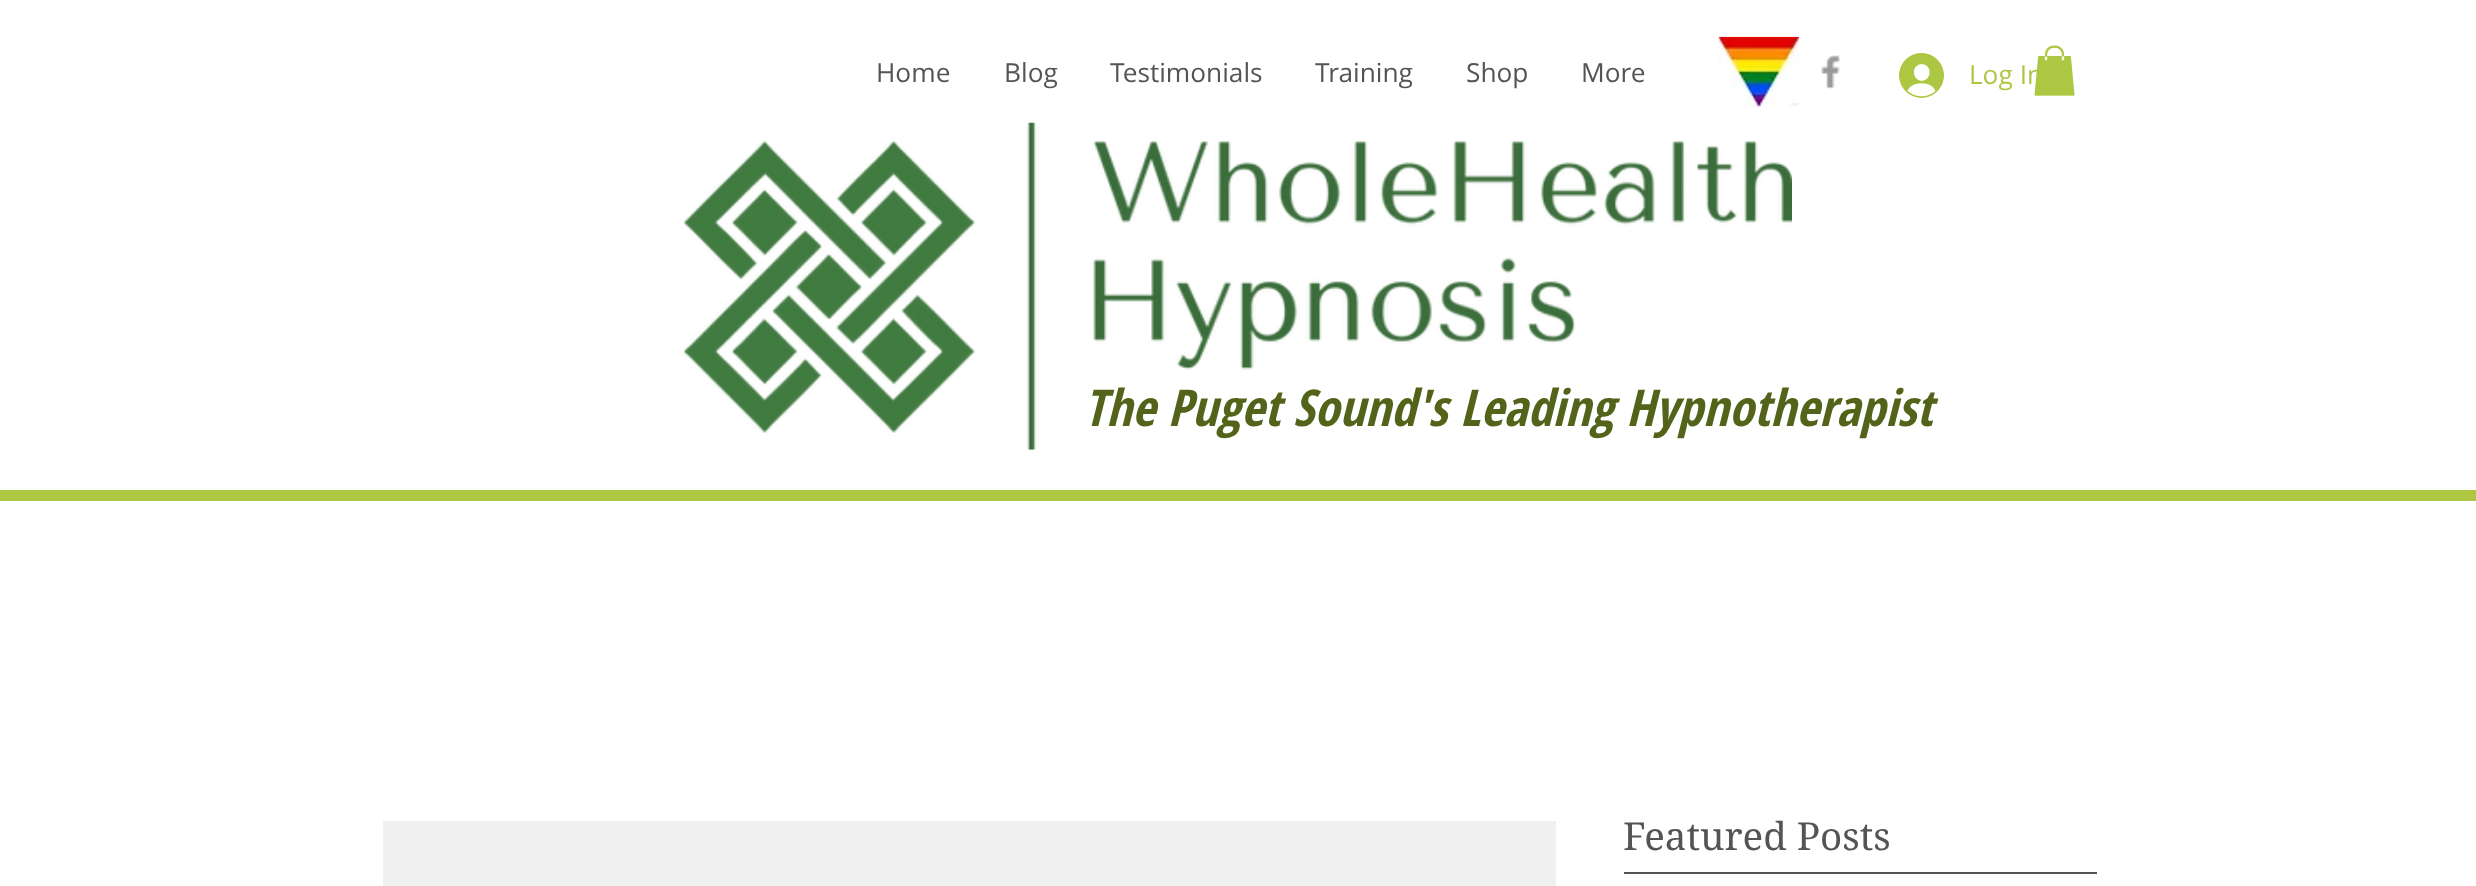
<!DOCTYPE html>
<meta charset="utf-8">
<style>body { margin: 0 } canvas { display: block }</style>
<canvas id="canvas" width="2476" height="886"></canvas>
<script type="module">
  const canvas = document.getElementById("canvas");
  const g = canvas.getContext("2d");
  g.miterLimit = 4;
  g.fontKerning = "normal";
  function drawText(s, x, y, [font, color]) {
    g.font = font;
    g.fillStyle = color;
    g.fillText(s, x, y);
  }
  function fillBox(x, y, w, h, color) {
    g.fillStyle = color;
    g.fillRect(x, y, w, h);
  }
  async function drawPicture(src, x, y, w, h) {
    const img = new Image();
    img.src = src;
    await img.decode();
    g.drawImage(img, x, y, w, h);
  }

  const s1 = ["26.25px Open Sans", "#555353"];
  const s2 = ["26.25px Open Sans", "#ADC743"];
  const s3 = ["italic bold 50.75px Open Sans Condensed", "#53631A"];
  const s4 = ["38.5px 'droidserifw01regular'", "#555353"];

  fillBox(0, 0, 2476, 886, "#FFFFFF");
  drawText("Home", 876, 82, s1);
  drawText("Blog", 1004, 82, s1);
  drawText("Testimonials", 1110, 82, s1);
  drawText("Training", 1315, 82, s1);
  drawText("Shop", 1466, 82, s1);
  drawText("More", 1581, 82, s1);
  await drawPicture("pic1.png", 1718, 36, 81, 71);
  await drawPicture("pic2.png", 1821, 55, 19, 34);
  await drawPicture("pic3.png", 1899, 53, 45, 45);
  drawText("Log In", 1969, 84, s2);
  await drawPicture("pic4.png", 2034, 45, 41, 51);
  drawText("The Puget Sound's Leading Hypnotherapist", 1084, 426, s3);
  await drawPicture("pic5.png", 684, 122, 1108, 328);
  fillBox(0, 490, 2476, 11, "#ADC743");
  fillBox(383, 821, 1173, 65, "#F0F0F0");
  drawText("Featured Posts", 1623, 850, s4);
  fillBox(1624, 872, 473, 2, "#555353");
</script>
